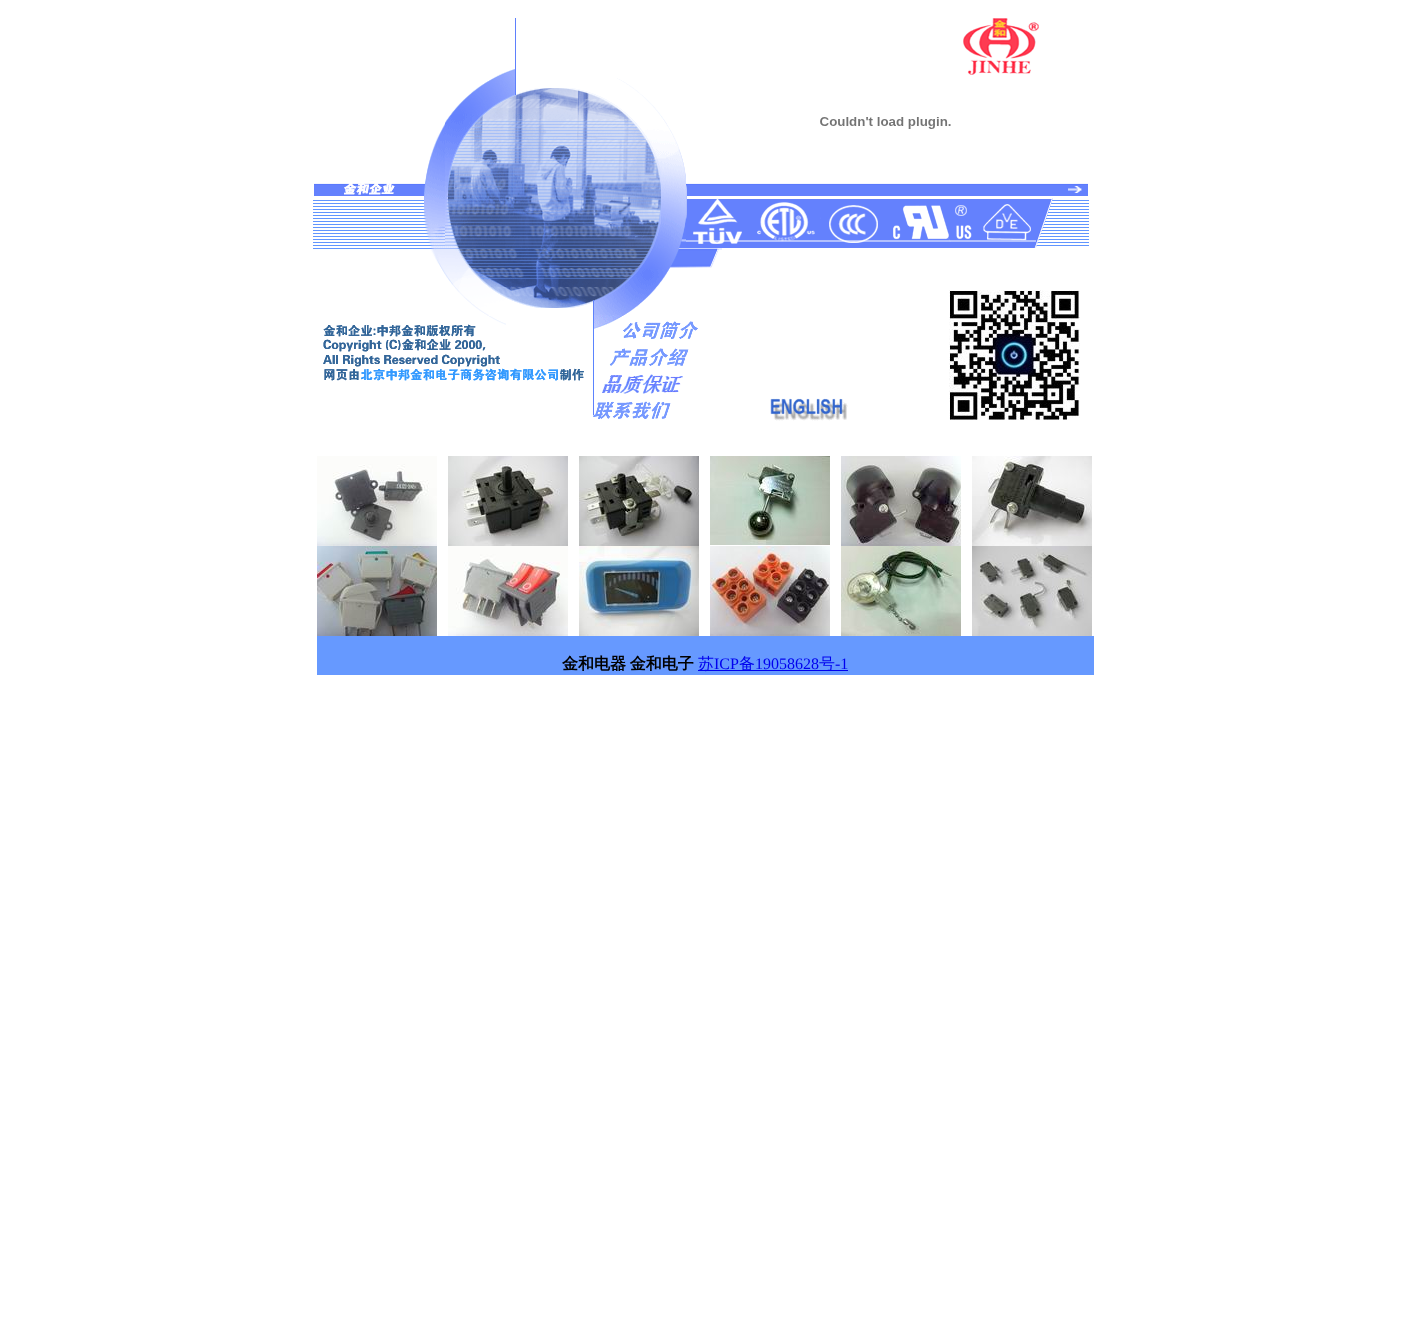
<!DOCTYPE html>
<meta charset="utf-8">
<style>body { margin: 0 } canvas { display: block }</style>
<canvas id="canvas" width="1410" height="1342"></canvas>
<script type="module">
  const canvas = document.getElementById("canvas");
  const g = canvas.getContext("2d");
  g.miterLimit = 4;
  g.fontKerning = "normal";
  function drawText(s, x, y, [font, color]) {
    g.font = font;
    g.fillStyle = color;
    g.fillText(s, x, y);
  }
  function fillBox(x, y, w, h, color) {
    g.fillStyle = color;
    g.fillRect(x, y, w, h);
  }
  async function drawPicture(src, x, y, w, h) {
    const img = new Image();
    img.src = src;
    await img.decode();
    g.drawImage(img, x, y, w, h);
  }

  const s1 = ["bold 16px WenQuanYi Zen Hei", "#000000"];
  const s2 = ["500 16px WenQuanYi Zen Hei", "#0000EE"];
  const s3 = ["16px Liberation Serif", "#0000EE"];

  fillBox(0, 0, 1410, 1342, "#FFFFFF");
  await drawPicture("pic1.png", 451, 18, 73, 96);
  await drawPicture("pic2.png", 963, 18, 76, 57);
  await drawPicture("pic3.png", 524, 79, 136, 35);
  fillBox(617, 78, 1, 1, "#F9FBFF");
  await drawPicture("pic4.png", 820, 117, 131, 12);
  await drawPicture("pic5.png", 425, 123, 20, 57);
  await drawPicture("pic6.png", 445, 114, 239, 49);
  await drawPicture("pic7.png", 445, 163, 70, 85);
  await drawPicture("pic8.png", 515, 163, 110, 85);
  await drawPicture("pic9.png", 625, 163, 61, 85);
  await drawPicture("pic10.png", 313, 180, 109, 66);
  await drawPicture("pic11.png", 422, 180, 23, 68);
  await drawPicture("pic12.png", 686, 183, 403, 65);
  fillBox(313, 248, 108, 1, "#6195FF");
  await drawPicture("pic13.png", 421, 248, 203, 67);
  await drawPicture("pic14.png", 624, 248, 98, 21);
  await drawPicture("pic15.png", 624, 269, 1, 46);
  await drawPicture("pic16.png", 625, 269, 44, 46);
  await drawPicture("pic17.png", 949, 290, 131, 130);
  await drawPicture("pic18.png", 323, 325, 98, 41);
  fillBox(487, 315, 2, 1, "#F5F7FF");
  await drawPicture("pic19.png", 593, 315, 105, 79);
  await drawPicture("pic20.png", 421, 316, 85, 50);
  await drawPicture("pic21.png", 324, 369, 34, 12);
  await drawPicture("pic22.png", 356, 366, 2, 1);
  await drawPicture("pic23.png", 358, 366, 200, 15);
  await drawPicture("pic24.png", 560, 368, 24, 13);
  await drawPicture("pic25.png", 593, 394, 78, 25);
  await drawPicture("pic26.png", 770, 398, 78, 23);
  await drawPicture("pic27.png", 317, 456, 120, 90);
  await drawPicture("pic28.png", 448, 456, 120, 90);
  await drawPicture("pic29.png", 579, 456, 120, 90);
  await drawPicture("pic30.png", 710, 456, 120, 89);
  await drawPicture("pic31.png", 841, 456, 120, 90);
  await drawPicture("pic32.png", 972, 456, 120, 90);
  await drawPicture("pic33.png", 317, 546, 120, 90);
  await drawPicture("pic34.png", 448, 546, 120, 90);
  await drawPicture("pic35.png", 579, 546, 120, 90);
  await drawPicture("pic36.png", 710, 546, 120, 90);
  await drawPicture("pic37.png", 841, 546, 120, 90);
  await drawPicture("pic38.png", 972, 546, 120, 90);
  fillBox(317, 636, 777, 39, "#6699FF");
  g.wordSpacing = "-1px";
  drawText("金和电器 金和电子", 562, 669, s1);
  fillBox(698, 670, 150, 1, "#0000EE");
  g.wordSpacing = "0px";
  drawText("苏", 698, 669, s2);
  drawText("ICP", 714, 669, s3);
  drawText("备", 739, 669, s2);
  drawText("19058628", 755, 669, s3);
  drawText("号", 819, 669, s2);
  drawText("-1", 835, 669, s3);
</script>
